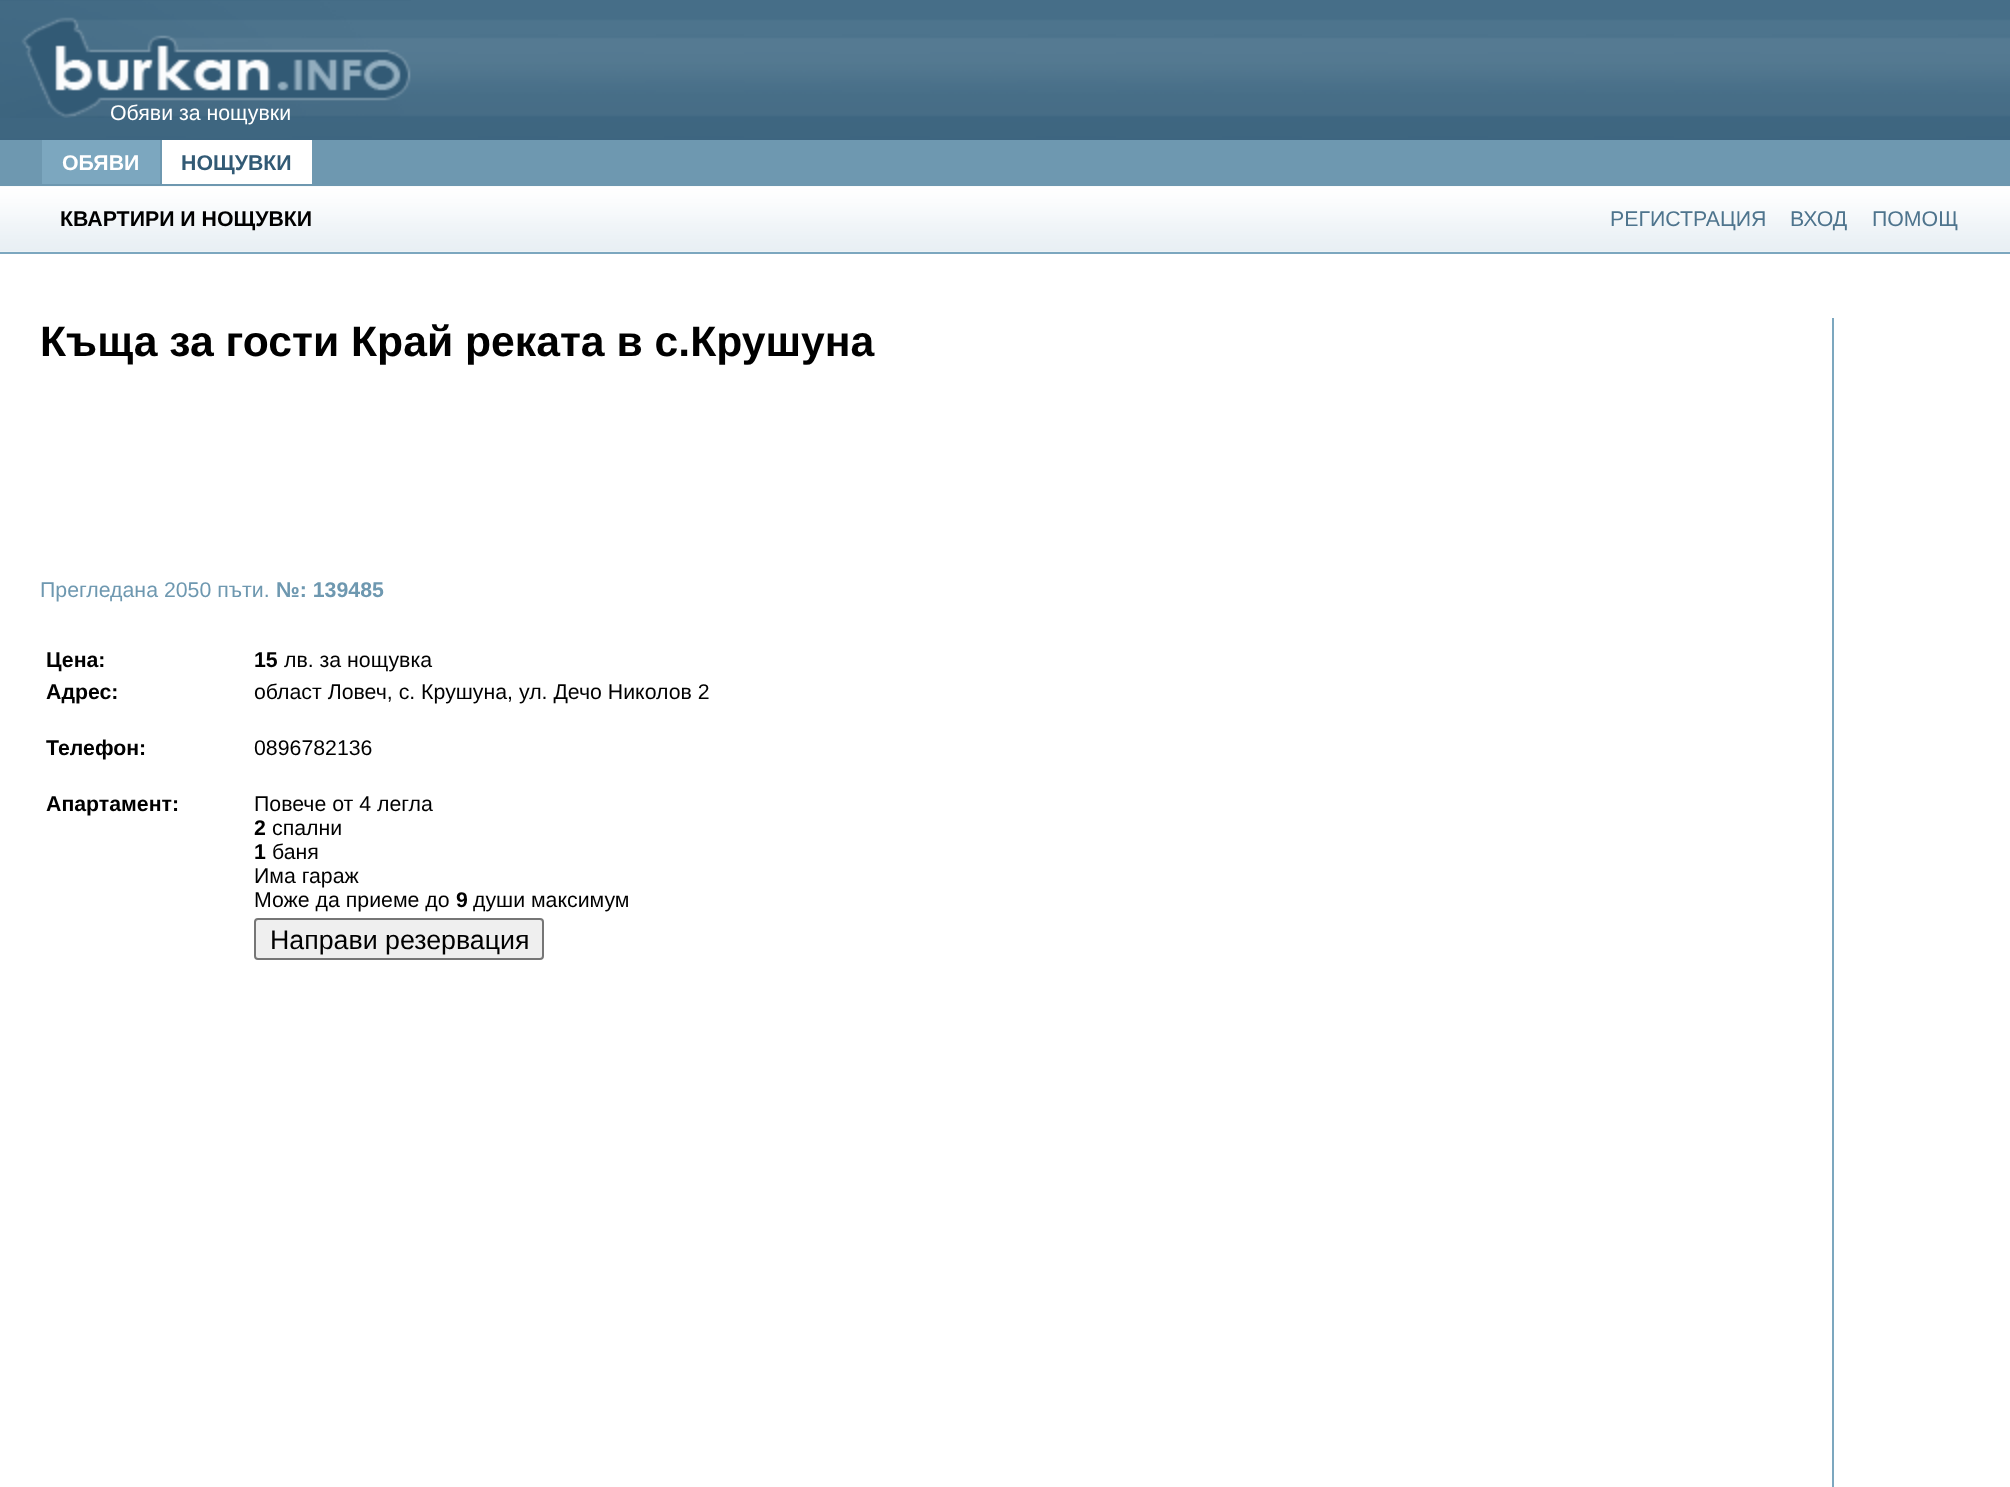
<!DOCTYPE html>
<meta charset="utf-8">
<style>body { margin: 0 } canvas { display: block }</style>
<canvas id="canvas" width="2010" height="1487"></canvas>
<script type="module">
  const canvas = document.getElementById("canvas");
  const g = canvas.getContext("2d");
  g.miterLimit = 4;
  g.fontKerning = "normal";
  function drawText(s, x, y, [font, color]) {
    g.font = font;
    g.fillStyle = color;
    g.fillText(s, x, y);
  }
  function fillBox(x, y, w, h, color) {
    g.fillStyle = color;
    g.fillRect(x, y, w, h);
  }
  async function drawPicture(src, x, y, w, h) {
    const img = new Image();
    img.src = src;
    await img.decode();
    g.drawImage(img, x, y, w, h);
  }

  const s1 = ["21.3px Liberation Sans", "#FFFFFF"];
  const s2 = ["bold 21.3px Liberation Sans", "#FFFFFF"];
  const s3 = ["bold 21.3px Liberation Sans", "#325A75"];
  const s4 = ["bold 21.3px Liberation Sans", "#000000"];
  const s5 = ["21.3px Liberation Sans", "#4E748D"];
  const s6 = ["bold 42.7px Liberation Sans", "#000000"];
  const s7 = ["21.3px Liberation Sans", "#6E98B0"];
  const s8 = ["bold 21.3px Liberation Sans", "#6E98B0"];
  const s9 = ["21.3px Liberation Sans", "#000000"];
  const s10 = ["26.75px Liberation Sans", "#000000"];

  fillBox(0, 0, 2010, 1487, "#6E98B0");
  await drawPicture("pic1.png", 0, 0, 2010, 140);
  await drawPicture("pic2.png", 0, 0, 411, 118);
  drawText("Обяви за нощувки", 110, 120, s1);
  fillBox(42, 140, 118, 44, "#7CA7BF");
  drawText("ОБЯВИ", 62, 170, s2);
  fillBox(162, 140, 150, 44, "#FFFFFF");
  drawText("НОЩУВКИ", 181, 170, s3);
  await drawPicture("pic3.png", 0, 186, 2010, 66);
  fillBox(0, 252, 2010, 2, "#7CA7BF");
  drawText("КВАРТИРИ И НОЩУВКИ", 60, 226, s4);
  drawText("РЕГИСТРАЦИЯ", 1610, 226, s5);
  drawText("ВХОД", 1790, 226, s5);
  drawText("ПОМОЩ", 1872, 226, s5);
  fillBox(0, 254, 2010, 1233, "#FFFFFF");
  drawText("Къща за гости Край реката в с.Крушуна", 40, 356, s6);
  drawText("Прегледана 2050 пъти.", 40, 597, s7);
  drawText("№: 139485", 276, 597, s8);
  drawText("Цена:", 46, 667, s4);
  drawText("15", 254, 667, s4);
  drawText("лв. за нощувка", 284, 667, s9);
  drawText("Адрес:", 46, 699, s4);
  drawText("област Ловеч, с. Крушуна, ул. Дечо Николов 2", 254, 699, s9);
  drawText("Телефон:", 46, 755, s4);
  drawText("0896782136", 254, 755, s9);
  drawText("Апартамент:", 46, 811, s4);
  drawText("Повече от 4 легла", 254, 811, s9);
  drawText("2", 254, 835, s4);
  drawText("спални", 272, 835, s9);
  drawText("1", 254, 859, s4);
  drawText("баня", 272, 859, s9);
  drawText("Има гараж", 254, 883, s9);
  drawText("Може да приеме до", 254, 907, s9);
  drawText("9", 456, 907, s4);
  drawText("души максимум", 473, 907, s9);
  g.fillStyle = "#EFEFEF";
  g.beginPath();
  g.roundRect(255, 919, 288, 40, 3);
  g.fill();
  g.strokeStyle = "#767676";
  g.lineWidth = 2;
  g.stroke();
  drawText("Направи резервация", 270, 949, s10);
  fillBox(1832, 318, 2, 1169, "#7CA7BF");
</script>
